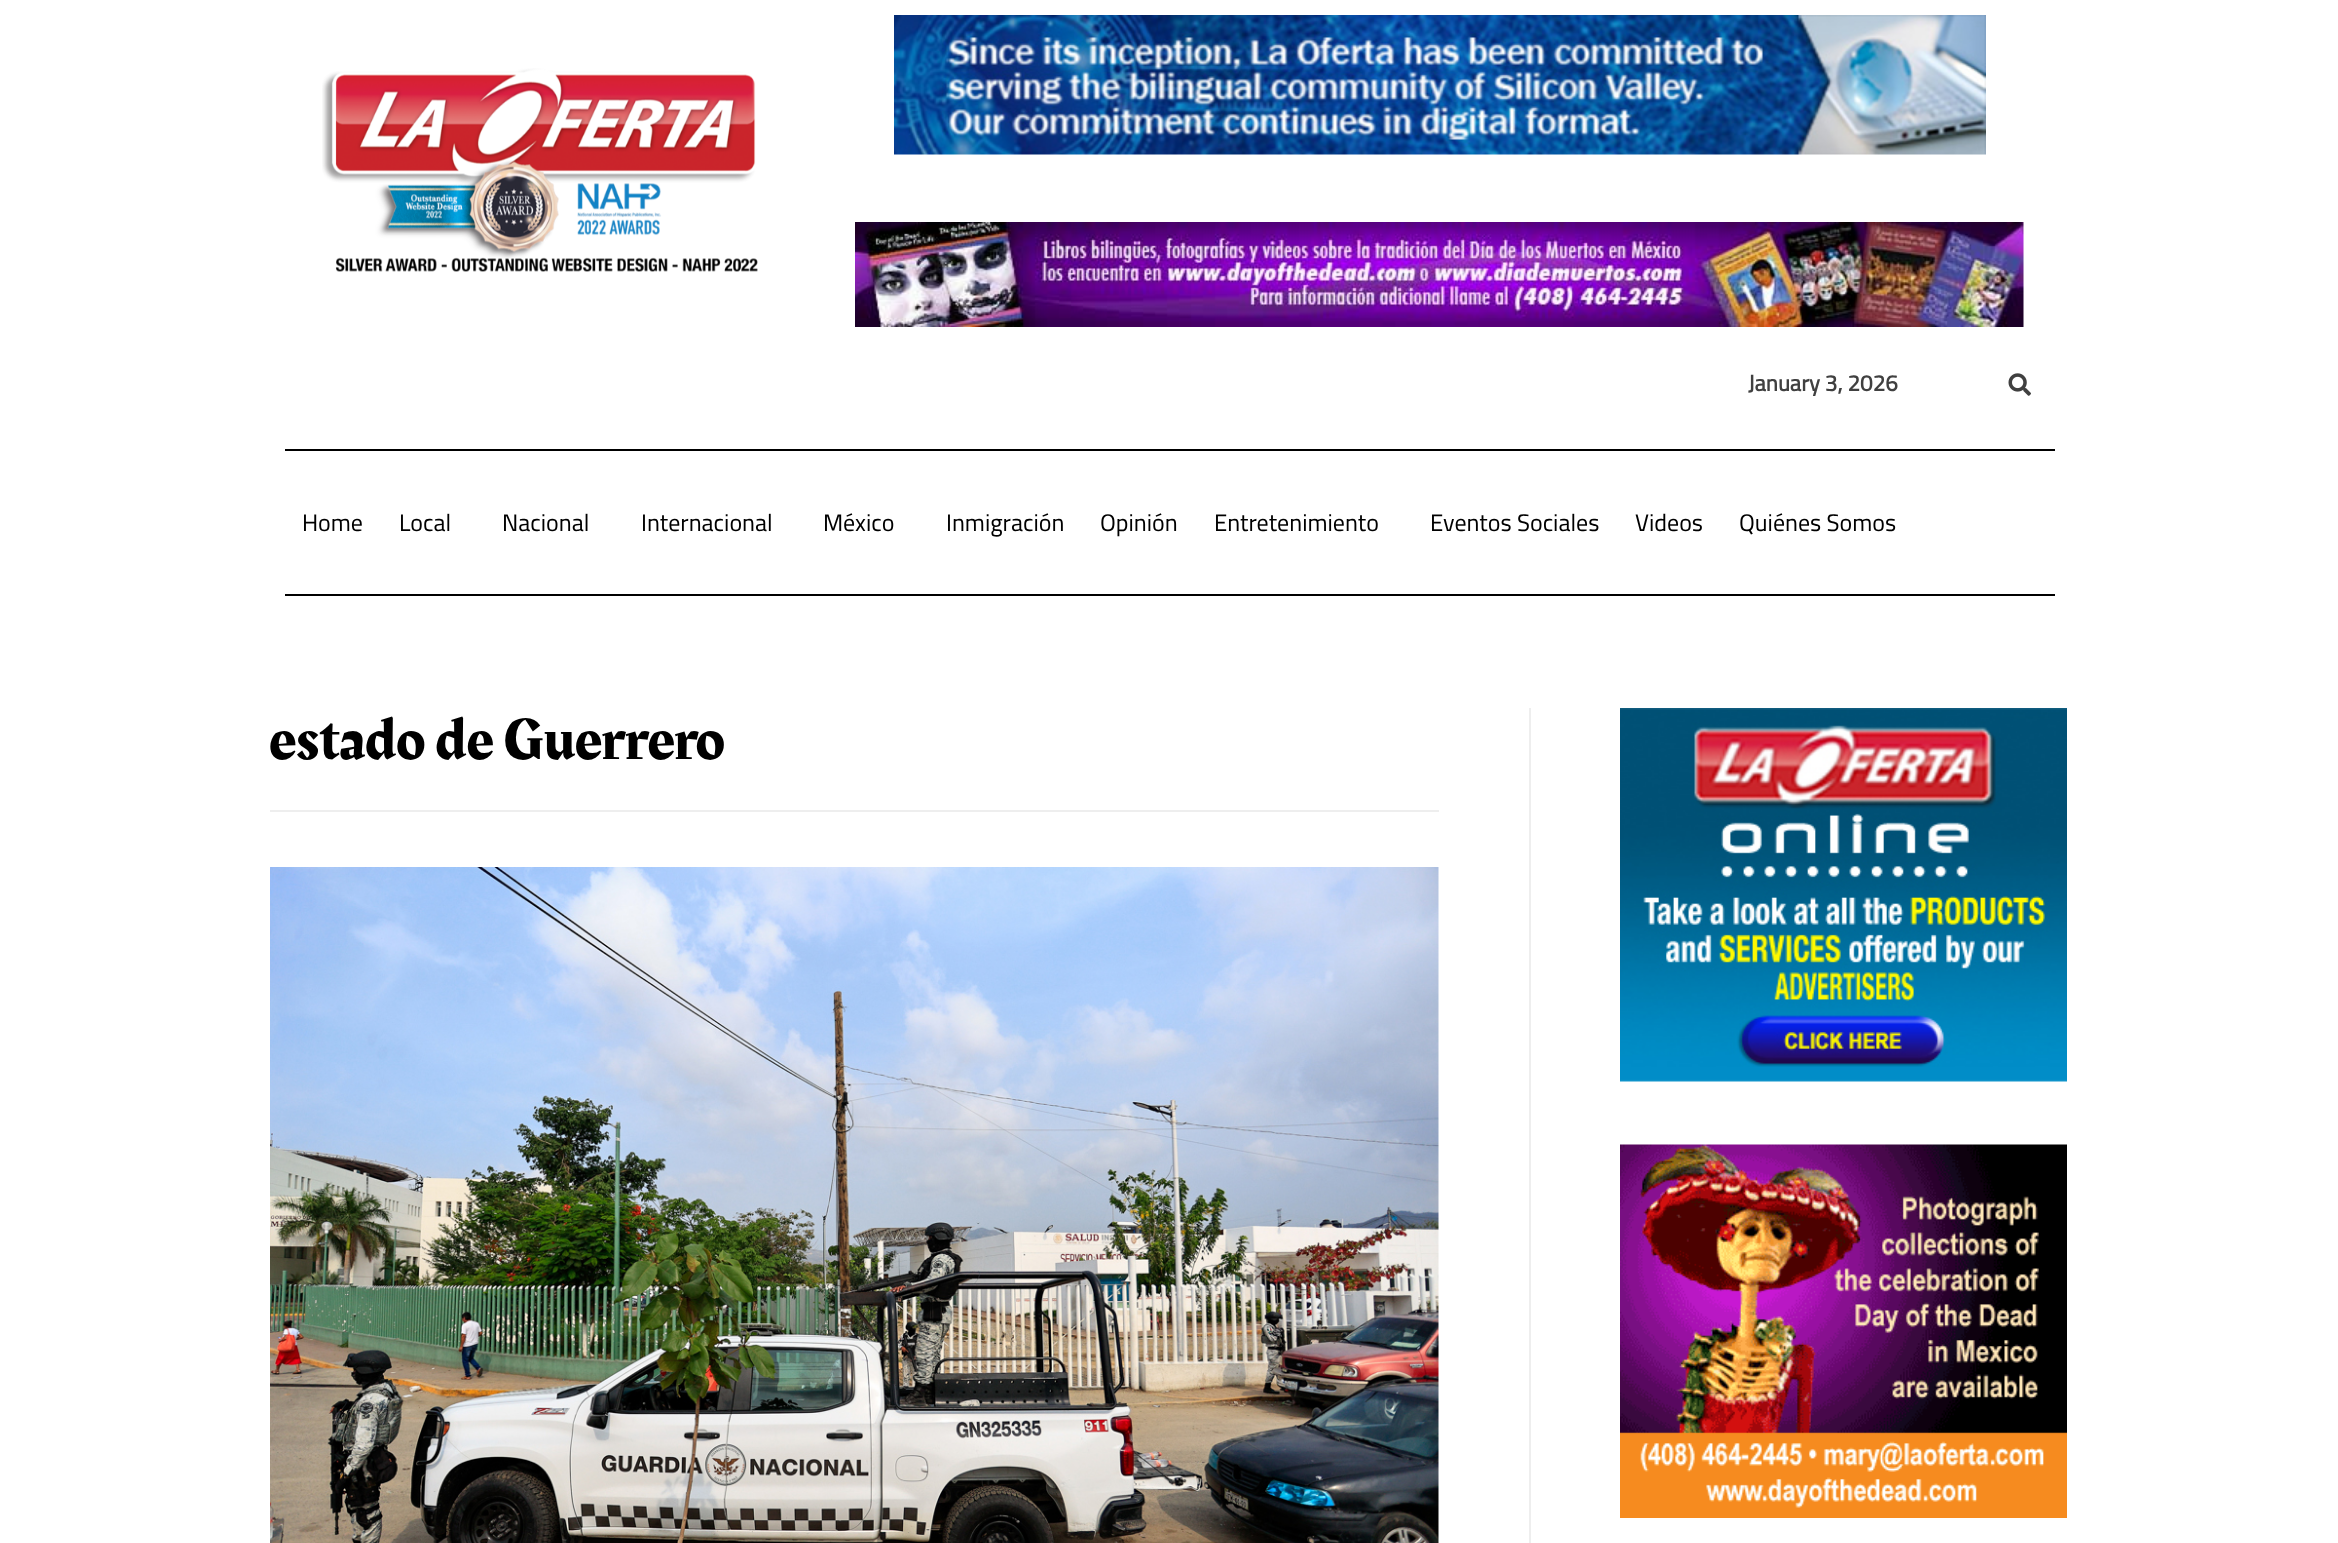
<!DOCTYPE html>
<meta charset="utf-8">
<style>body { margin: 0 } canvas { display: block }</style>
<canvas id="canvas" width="2338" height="1543"></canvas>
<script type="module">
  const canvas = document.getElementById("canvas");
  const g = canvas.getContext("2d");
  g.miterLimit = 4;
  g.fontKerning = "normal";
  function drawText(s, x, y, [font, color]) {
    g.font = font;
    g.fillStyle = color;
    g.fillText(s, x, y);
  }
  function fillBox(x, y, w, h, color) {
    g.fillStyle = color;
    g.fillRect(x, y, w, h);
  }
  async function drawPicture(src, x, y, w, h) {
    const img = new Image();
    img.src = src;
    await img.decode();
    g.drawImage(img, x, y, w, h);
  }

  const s1 = ["bold 22.5px Cairo", "#404040"];
  const s2 = ["24px Cairo", "#000000"];
  const s3 = ["60px Rakkas", "#000000"];

  fillBox(0, 0, 2338, 1543, "#FFFFFF");
  await drawPicture("pic1.png", 322, 68, 436, 204);
  await drawPicture("pic2.png", 894, 15, 1092, 140);
  await drawPicture("pic3.png", 855, 222, 1169, 105);
  drawText("January 3, 2026", 1748, 391, s1);
  await drawPicture("pic4.png", 2008, 373, 23, 23);
  fillBox(285, 449, 1770, 2, "#000000");
  drawText("Home", 302, 531, s2);
  drawText("Local", 399, 531, s2);
  drawText("Nacional", 502, 531, s2);
  drawText("Internacional", 641, 531, s2);
  drawText("México", 823, 531, s2);
  drawText("Inmigración", 946, 531, s2);
  drawText("Opinión", 1100, 531, s2);
  drawText("Entretenimiento", 1214, 531, s2);
  drawText("Eventos Sociales", 1430, 531, s2);
  drawText("Videos", 1635, 531, s2);
  drawText("Quiénes Somos", 1739, 531, s2);
  fillBox(285, 594, 1770, 2, "#000000");
  fillBox(1529, 708, 2, 835, "#EEEEEE");
  fillBox(270, 810, 1169, 2, "#EEEEEE");
  drawText("estado de Guerrero", 269, 759, s3);
  await drawPicture("pic5.png", 270, 867, 1169, 676);
  await drawPicture("pic6.png", 1620, 708, 447, 374);
  await drawPicture("pic7.png", 1620, 1144, 447, 374);
</script>
